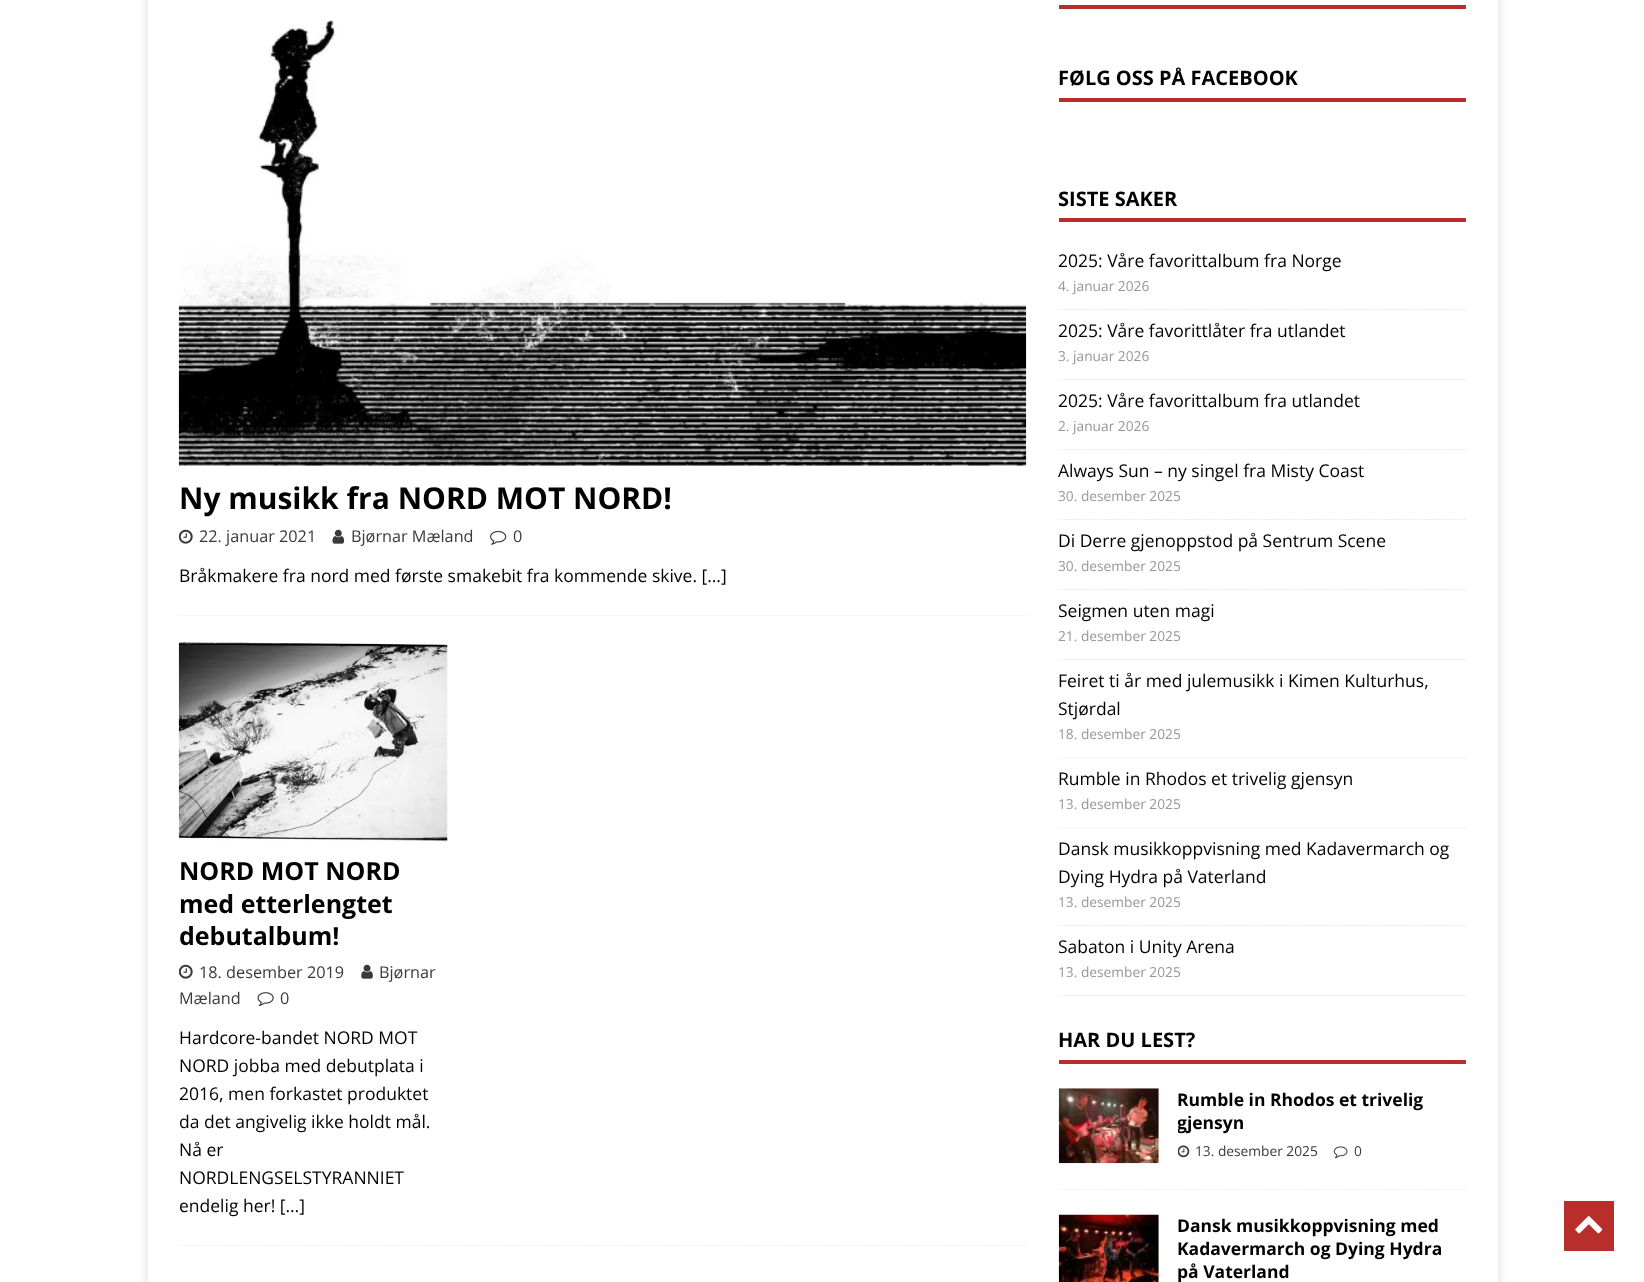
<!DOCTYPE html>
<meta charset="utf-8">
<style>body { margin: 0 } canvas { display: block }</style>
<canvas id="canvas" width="1644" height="1282"></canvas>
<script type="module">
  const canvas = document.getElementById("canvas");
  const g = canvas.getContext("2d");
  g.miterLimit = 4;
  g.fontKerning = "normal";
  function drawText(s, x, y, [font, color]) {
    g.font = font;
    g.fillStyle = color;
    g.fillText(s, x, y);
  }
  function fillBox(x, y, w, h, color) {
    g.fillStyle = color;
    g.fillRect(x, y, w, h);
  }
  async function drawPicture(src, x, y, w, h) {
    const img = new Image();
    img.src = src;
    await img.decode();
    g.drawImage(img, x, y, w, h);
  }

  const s1 = ["bold 30px Open Sans", "#000000"];
  const s2 = ["16.25px Open Sans", "#3A3A3A"];
  const s3 = ["17.5px Open Sans", "#000000"];
  const s4 = ["bold 25px Open Sans", "#000000"];
  const s5 = ["bold 20px Open Sans", "#000000"];
  const s6 = ["13.75px Open Sans", "#979797"];
  const s7 = ["bold 17.5px Open Sans", "#000000"];
  const s8 = ["13.75px Open Sans", "#3A3A3A"];

  fillBox(0, 0, 1644, 1282, "#FFFFFF");
  g.fillStyle = "rgba(50, 50, 50, 0.17)";
  g.filter = "blur(6px)";
  g.beginPath();
  g.rect(148, -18, 1350, 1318);
  g.fill();
  g.filter = "none";
  fillBox(148, 0, 1350, 1282, "#FFFFFF");
  g.beginPath();
  g.moveTo(179, 615.5);
  g.lineTo(1026, 615.5);
  g.strokeStyle = "#EBEBEB";
  g.lineWidth = 1.2;
  g.setLineDash([1.25, 1.25]);
  g.stroke();
  await drawPicture("pic1.png", 178, 20, 849, 446);
  drawText("Ny musikk fra NORD MOT NORD!", 179, 509, s1);
  await drawPicture("pic2.png", 179, 529, 14, 15);
  drawText("22. januar 2021", 199, 542, s2);
  await drawPicture("pic3.png", 332, 529, 13, 15);
  drawText("Bjørnar Mæland", 351, 542, s2);
  await drawPicture("pic4.png", 490, 530, 17, 15);
  drawText("0", 513, 542, s2);
  drawText("Bråkmakere fra nord med første smakebit fra kommende skive. […]", 179, 582, s3);
  g.save();
  g.beginPath();
  g.rect(179, 0, 847, 1246);
  g.clip();
  g.beginPath();
  g.moveTo(179, 1245.5);
  g.lineTo(1026, 1245.5);
  g.stroke();
  g.restore();
  await drawPicture("pic5.png", 178, 641, 270, 201);
  drawText("NORD MOT NORD", 179, 880, s4);
  drawText("med etterlengtet", 179, 913, s4);
  drawText("debutalbum!", 179, 945, s4);
  await drawPicture("pic2.png", 179, 964, 14, 15);
  drawText("18. desember 2019", 199, 978, s2);
  await drawPicture("pic6.png", 361, 964, 12, 15);
  drawText("Bjørnar", 379, 978, s2);
  drawText("Mæland", 179, 1004, s2);
  await drawPicture("pic7.png", 257, 992, 17, 14);
  drawText("0", 280, 1004, s2);
  drawText("Hardcore-bandet NORD MOT", 179, 1044, s3);
  drawText("NORD jobba med debutplata i", 179, 1072, s3);
  drawText("2016, men forkastet produktet", 179, 1100, s3);
  drawText("da det angivelig ikke holdt mål.", 179, 1128, s3);
  drawText("Nå er", 179, 1156, s3);
  drawText("NORDLENGSELSTYRANNIET", 179, 1184, s3);
  drawText("endelig her! […]", 179, 1212, s3);
  fillBox(1059, 5, 407, 4, "#B72E2A");
  fillBox(1059, 98, 407, 4, "#B72E2A");
  drawText("FØLG OSS PÅ FACEBOOK", 1058, 85, s5);
  fillBox(1059, 218, 407, 4, "#B72E2A");
  drawText("SISTE SAKER", 1058, 206, s5);
  g.beginPath();
  g.moveTo(1059, 309.5);
  g.lineTo(1466, 309.5);
  g.strokeStyle = "#E5E5E5";
  g.stroke();
  drawText("2025: Våre favorittalbum fra Norge", 1058, 267, s3);
  drawText("4. januar 2026", 1058, 291, s6);
  g.beginPath();
  g.moveTo(1059, 379.5);
  g.lineTo(1466, 379.5);
  g.stroke();
  drawText("2025: Våre favorittlåter fra utlandet", 1058, 337, s3);
  drawText("3. januar 2026", 1058, 361, s6);
  g.beginPath();
  g.moveTo(1059, 449.5);
  g.lineTo(1466, 449.5);
  g.stroke();
  drawText("2025: Våre favorittalbum fra utlandet", 1058, 407, s3);
  drawText("2. januar 2026", 1058, 431, s6);
  g.beginPath();
  g.moveTo(1059, 519.5);
  g.lineTo(1466, 519.5);
  g.stroke();
  drawText("Always Sun – ny singel fra Misty Coast", 1058, 477, s3);
  drawText("30. desember 2025", 1058, 501, s6);
  g.beginPath();
  g.moveTo(1059, 589.5);
  g.lineTo(1466, 589.5);
  g.stroke();
  drawText("Di Derre gjenoppstod på Sentrum Scene", 1058, 547, s3);
  drawText("30. desember 2025", 1058, 571, s6);
  g.beginPath();
  g.moveTo(1059, 659.5);
  g.lineTo(1466, 659.5);
  g.stroke();
  drawText("Seigmen uten magi", 1058, 617, s3);
  drawText("21. desember 2025", 1058, 641, s6);
  g.beginPath();
  g.moveTo(1059, 758);
  g.lineTo(1466, 758);
  g.stroke();
  drawText("Feiret ti år med julemusikk i Kimen Kulturhus,", 1058, 687, s3);
  drawText("Stjørdal", 1058, 715, s3);
  drawText("18. desember 2025", 1058, 739, s6);
  g.beginPath();
  g.moveTo(1059, 828);
  g.lineTo(1466, 828);
  g.stroke();
  drawText("Rumble in Rhodos et trivelig gjensyn", 1058, 785, s3);
  drawText("13. desember 2025", 1058, 809, s6);
  g.beginPath();
  g.moveTo(1059, 925.5);
  g.lineTo(1466, 925.5);
  g.stroke();
  drawText("Dansk musikkoppvisning med Kadavermarch og", 1058, 855, s3);
  drawText("Dying Hydra på Vaterland", 1058, 883, s3);
  drawText("13. desember 2025", 1058, 907, s6);
  g.save();
  g.beginPath();
  g.rect(1059, 186, 407, 810);
  g.clip();
  g.beginPath();
  g.moveTo(1059, 995.5);
  g.lineTo(1466, 995.5);
  g.stroke();
  g.restore();
  drawText("Sabaton i Unity Arena", 1058, 953, s3);
  drawText("13. desember 2025", 1058, 977, s6);
  fillBox(1059, 1060, 407, 4, "#B72E2A");
  drawText("HAR DU LEST?", 1058, 1047, s5);
  g.beginPath();
  g.moveTo(1059, 1189.5);
  g.lineTo(1466, 1189.5);
  g.strokeStyle = "#EBEBEB";
  g.stroke();
  await drawPicture("pic8.png", 1058, 1088, 101, 76);
  drawText("Rumble in Rhodos et trivelig", 1177, 1106, s7);
  g.save();
  g.beginPath();
  g.rect(1178, 1089, 288, 74);
  g.clip();
  drawText("gjensyn", 1177, 1129, s7);
  g.restore();
  await drawPicture("pic9.png", 1178, 1145, 12, 13);
  drawText("13. desember 2025", 1195, 1156, s8);
  await drawPicture("pic10.png", 1333, 1146, 15, 13);
  drawText("0", 1354, 1156, s8);
  await drawPicture("pic11.png", 1058, 1214, 101, 68);
  drawText("Dansk musikkoppvisning med", 1177, 1232, s7);
  drawText("Kadavermarch og Dying Hydra", 1177, 1255, s7);
  drawText("på Vaterland", 1177, 1278, s7);
  fillBox(1564, 1201, 50, 50, "#B72E2A");
  await drawPicture("pic12.png", 1575, 1216, 28, 18);
</script>
